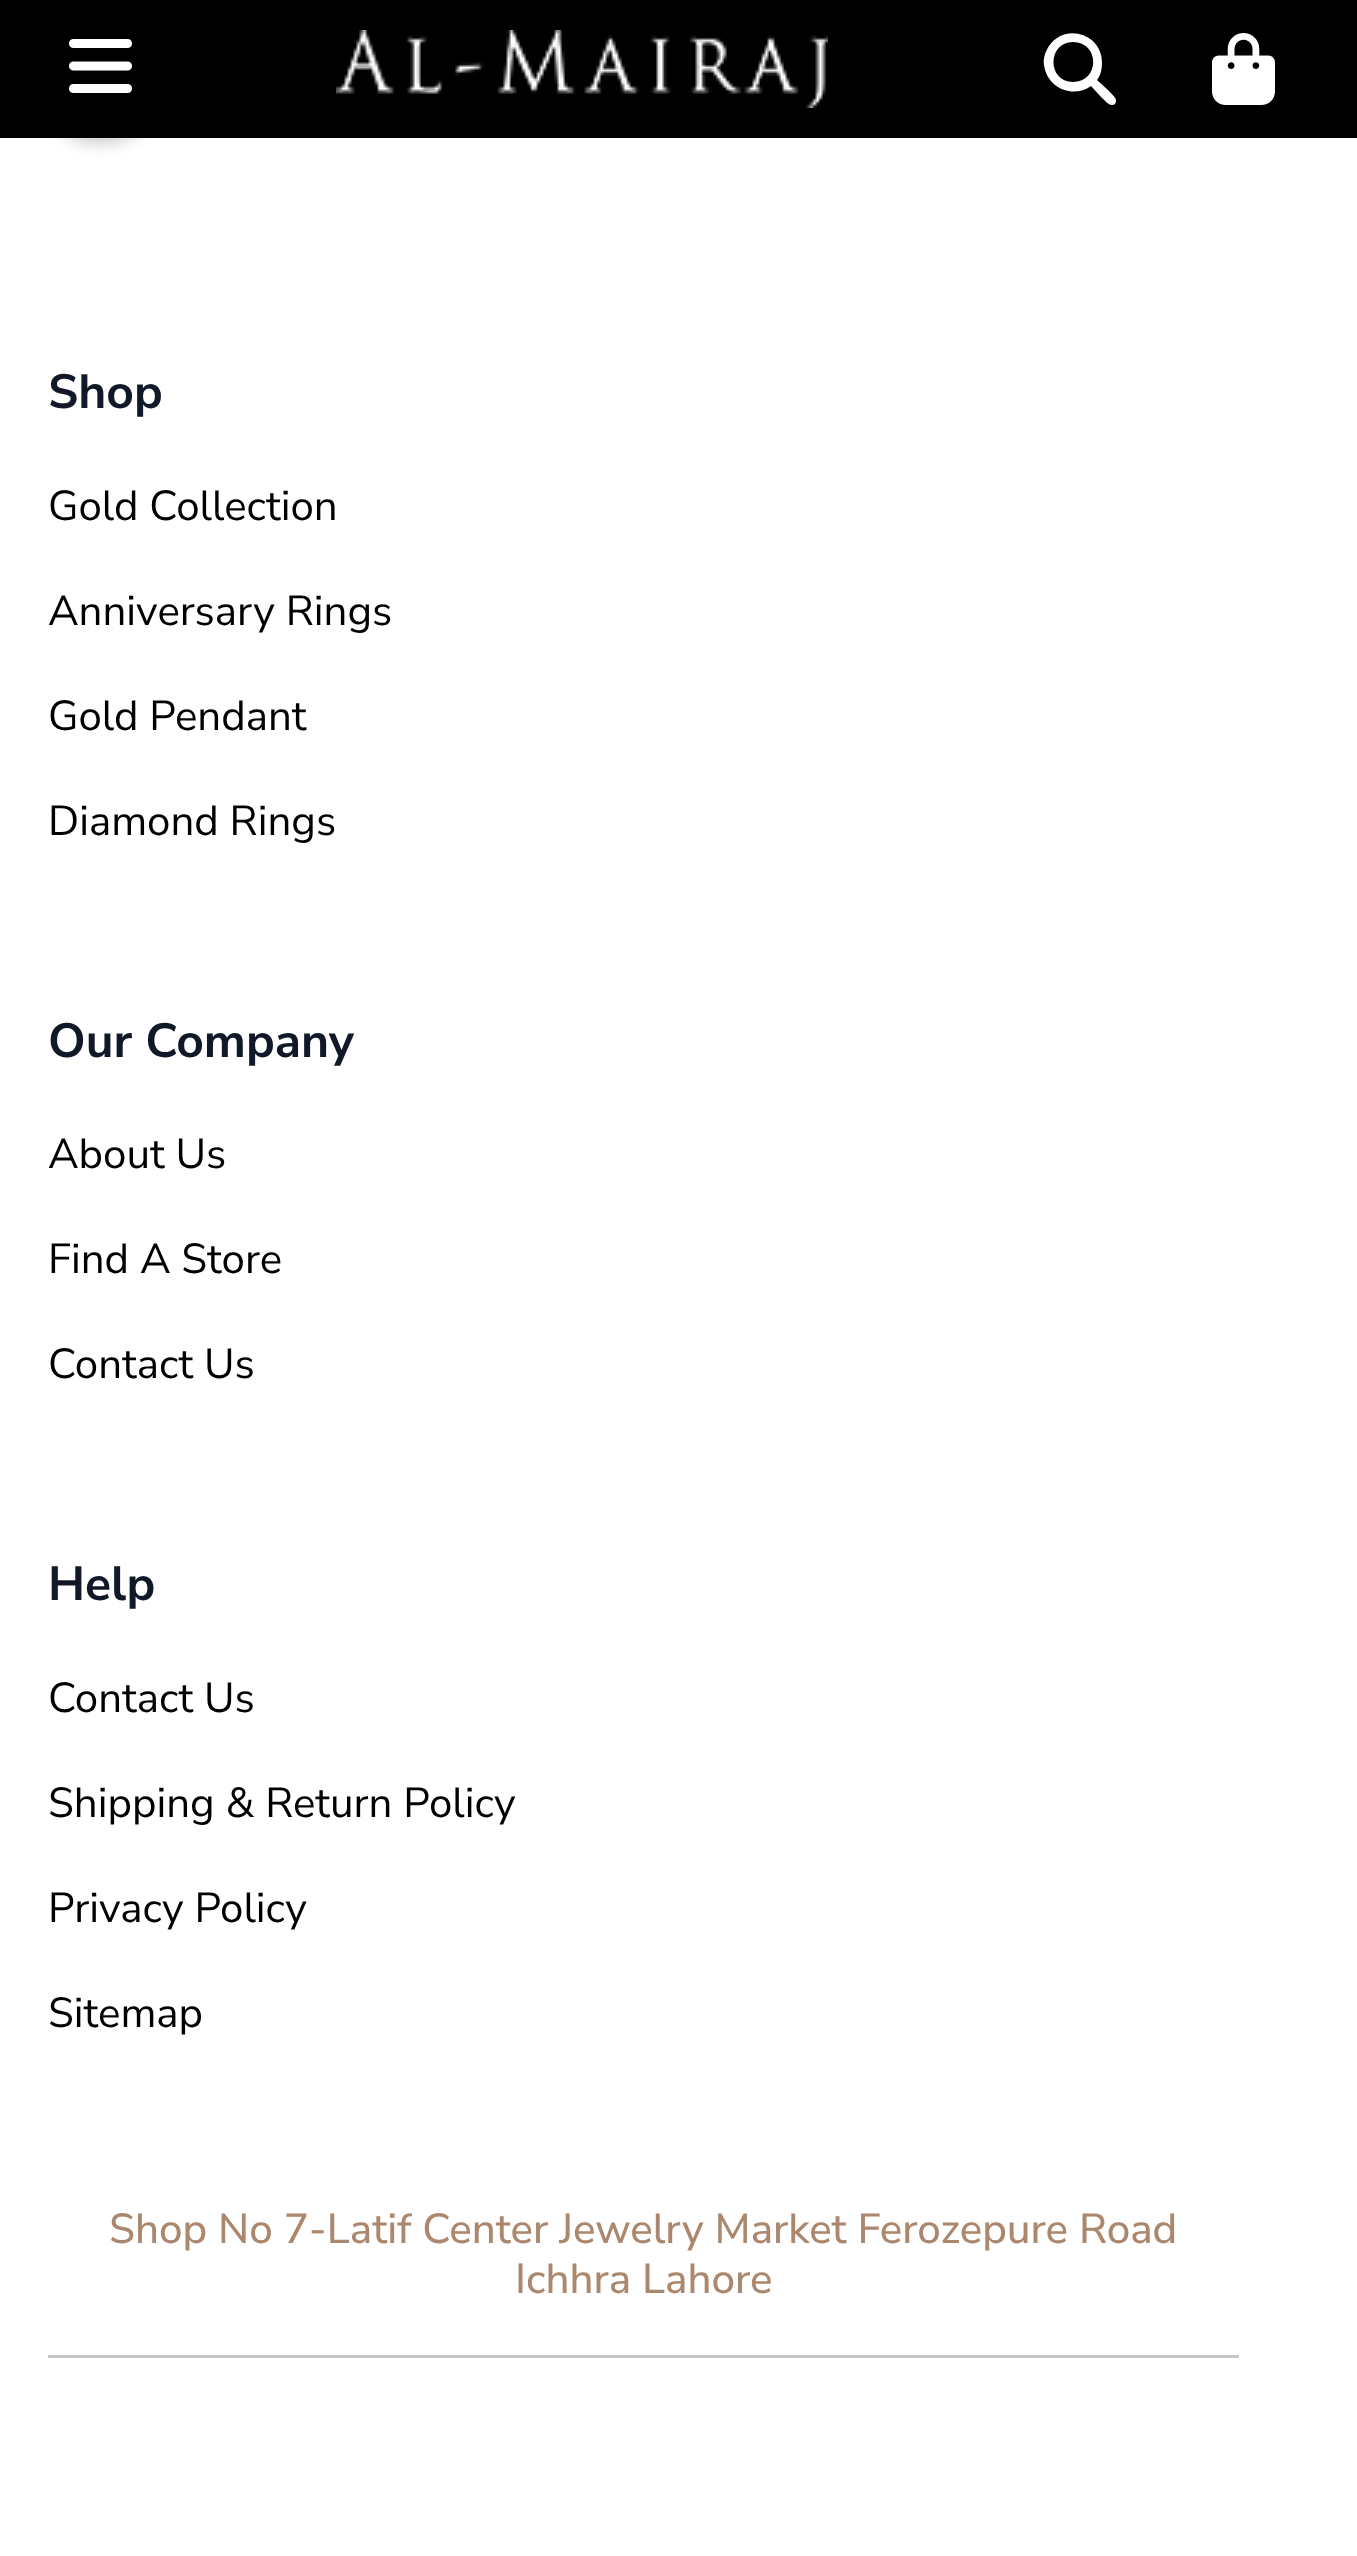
<!DOCTYPE html>
<meta charset="utf-8">
<style>body { margin: 0 } canvas { display: block }</style>
<canvas id="canvas" width="1357" height="2556"></canvas>
<script type="module">
  const canvas = document.getElementById("canvas");
  const g = canvas.getContext("2d");
  g.miterLimit = 4;
  g.fontKerning = "normal";
  function drawText(s, x, y, [font, color]) {
    g.font = font;
    g.fillStyle = color;
    g.fillText(s, x, y);
  }
  function fillBox(x, y, w, h, color) {
    g.fillStyle = color;
    g.fillRect(x, y, w, h);
  }
  async function drawPicture(src, x, y, w, h) {
    const img = new Image();
    img.src = src;
    await img.decode();
    g.drawImage(img, x, y, w, h);
  }

  const s1 = ["bold 48px Nunito Sans", "#111827"];
  const s2 = ["42px Nunito Sans", "#000000"];
  const s3 = ["500 42px Nunito Sans", "#AB876D"];

  fillBox(0, 0, 1357, 2556, "#FFFFFF");
  fillBox(0, 0, 1357, 138, "#000000");
  g.save();
  g.beginPath();
  g.moveTo(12, 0);
  g.lineTo(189, 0);
  g.lineTo(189, 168);
  g.lineTo(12, 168);
  g.closePath();
  g.moveTo(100.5, 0);
  g.bezierCurveTo(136, 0, 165, 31, 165, 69);
  g.bezierCurveTo(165, 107, 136, 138, 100.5, 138);
  g.bezierCurveTo(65, 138, 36, 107, 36, 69);
  g.bezierCurveTo(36, 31, 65, 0, 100.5, 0);
  g.closePath();
  g.clip("evenodd");
  g.fillStyle = "rgba(0, 0, 0, 0.2)";
  g.filter = "blur(7.5px)";
  g.beginPath();
  g.roundRect(36, 6, 129, 138, 64.5);
  g.fill();
  g.filter = "none";
  g.restore();
  await drawPicture("pic1.png", 69, 39, 63, 54);
  await drawPicture("pic2.png", 336, 30, 492, 78);
  g.fillStyle = "#FFFFFF";
  g.beginPath();
  g.moveTo(1102, 62);
  g.bezierCurveTo(1102, 69, 1101, 75, 1097, 80);
  g.lineTo(1109, 91);
  g.bezierCurveTo(1111, 94, 1119, 99, 1115, 104);
  g.bezierCurveTo(1110, 108, 1105, 100, 1102, 98);
  g.lineTo(1091, 86);
  g.bezierCurveTo(1080, 94, 1065, 93, 1055, 85);
  g.bezierCurveTo(1049, 80, 1045, 73, 1044, 65);
  g.bezierCurveTo(1043, 59, 1045, 52, 1049, 46);
  g.bezierCurveTo(1065, 22, 1102, 34, 1102, 62);
  g.closePath();
  g.moveTo(1073, 82);
  g.bezierCurveTo(1100, 82, 1100, 42, 1073, 42);
  g.bezierCurveTo(1047, 42, 1047, 82, 1073, 82);
  g.closePath();
  g.fill();
  await drawPicture("pic3.png", 1212, 33, 63, 72);
  drawText("Shop", 48, 408, s1);
  drawText("Gold Collection", 48, 520, s2);
  drawText("Anniversary Rings", 48, 625, s2);
  drawText("Gold Pendant", 48, 730, s2);
  drawText("Diamond Rings", 48, 835, s2);
  drawText("Our Company", 48, 1057, s1);
  drawText("About Us", 48, 1168, s2);
  drawText("Find A Store", 48, 1273, s2);
  drawText("Contact Us", 48, 1378, s2);
  drawText("Help", 48, 1600, s1);
  drawText("Contact Us", 48, 1712, s2);
  drawText("Shipping & Return Policy", 48, 1817, s2);
  drawText("Privacy Policy", 48, 1922, s2);
  drawText("Sitemap", 48, 2027, s2);
  drawText("Shop No 7-Latif Center Jewelry Market Ferozepure Road", 109, 2243, s3);
  drawText("Ichhra Lahore", 515, 2293, s3);
  fillBox(48, 2355, 1191, 3, "#C4C5C9");
</script>
